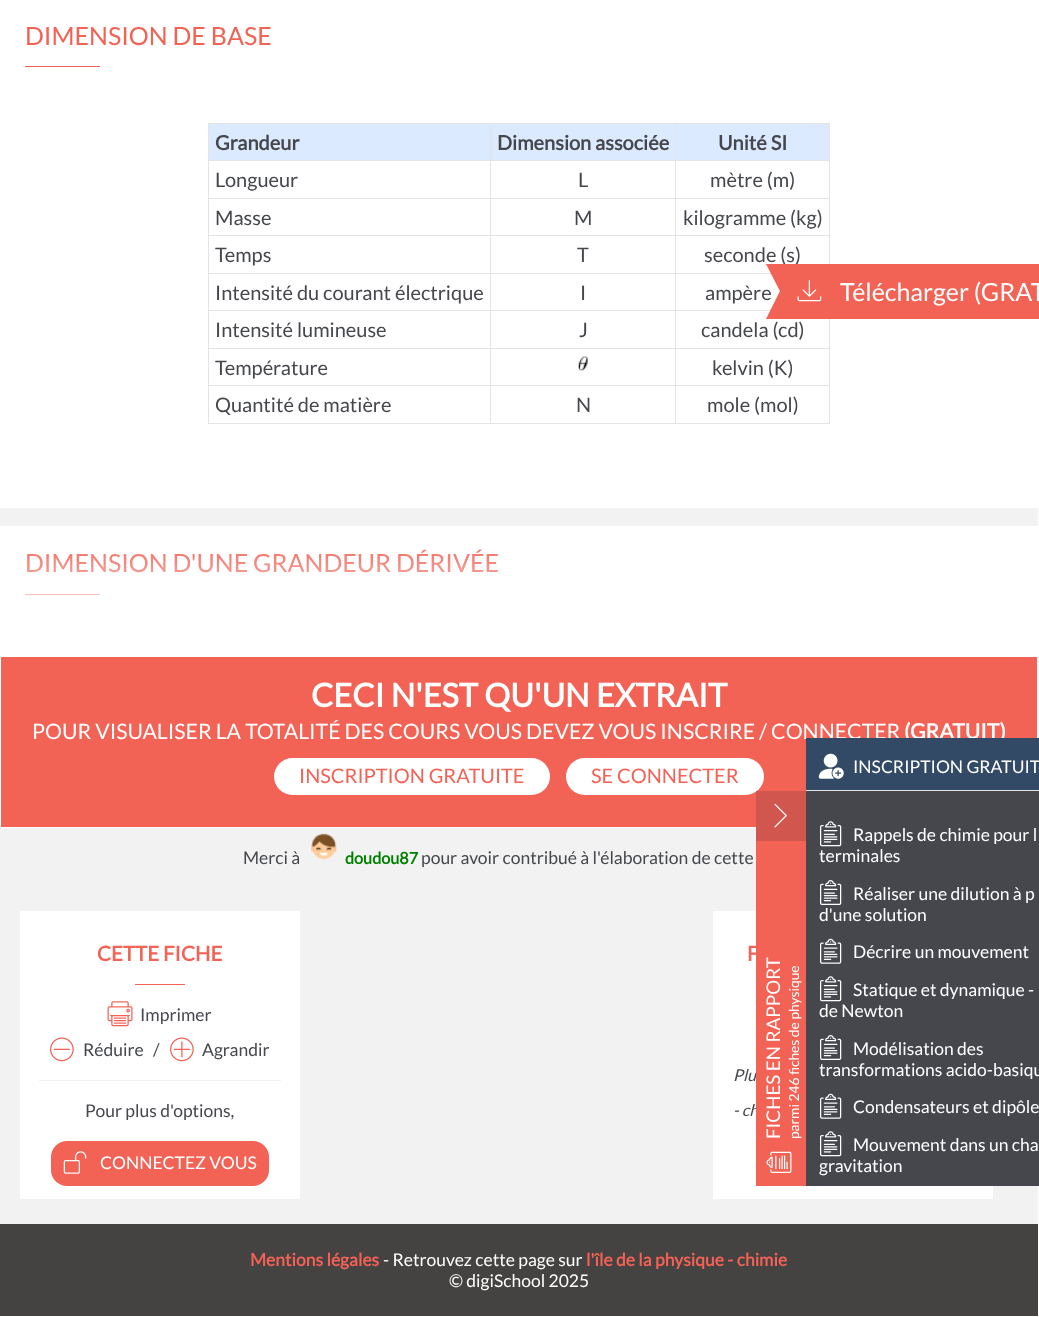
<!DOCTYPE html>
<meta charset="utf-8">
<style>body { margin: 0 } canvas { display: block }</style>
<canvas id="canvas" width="1039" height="1317"></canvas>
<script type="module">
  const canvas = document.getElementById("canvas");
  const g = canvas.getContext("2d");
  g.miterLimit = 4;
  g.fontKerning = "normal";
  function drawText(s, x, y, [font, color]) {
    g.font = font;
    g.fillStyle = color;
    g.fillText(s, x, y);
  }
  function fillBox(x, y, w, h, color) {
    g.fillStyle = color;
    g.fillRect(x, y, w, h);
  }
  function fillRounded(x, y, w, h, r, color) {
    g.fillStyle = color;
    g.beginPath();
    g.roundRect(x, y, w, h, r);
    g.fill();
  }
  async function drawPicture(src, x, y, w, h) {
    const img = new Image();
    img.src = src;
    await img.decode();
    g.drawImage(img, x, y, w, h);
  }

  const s1 = ["25px Lato", "#F26255"];
  const s2 = ["bold 20px Lato", "#45474D"];
  const s3 = ["20px Lato", "#45474D"];
  const s4 = ["25px Lato", "#FFFFFF"];
  const s5 = ["bold 32.5px Lato", "#FFFFFF"];
  const s6 = ["21.25px Lato", "#FFFFFF"];
  const s7 = ["bold 21.25px Lato", "#FFFFFF"];
  const s8 = ["20px Lato", "#F26255"];
  const s9 = ["17.5px Lato", "#45474D"];
  const s10 = ["bold 16.25px Lato", "#008000"];
  const s11 = ["bold 20.5px Lato", "#F26255"];
  const s12 = ["17.5px Lato", "#FFFFFF"];
  const s13 = ["italic 16.25px Lato", "#45474D"];
  const s14 = ["bold 17.5px Lato", "#F26255"];

  fillBox(0, 0, 1039, 1317, "#FFFFFF");
  fillBox(0, 828, 1038, 396, "#F2F2F2");
  drawText("DIMENSION DE BASE", 25, 45, s1);
  fillBox(25, 66, 75, 1, "#F26255");
  fillBox(209, 124, 620, 36, "#DBEAFE");
  fillBox(675, 123, 155, 1, "#E4E4E4");
  fillBox(675, 160, 155, 1, "#E4E4E4");
  fillBox(675, 198, 155, 1, "#E4E4E4");
  fillBox(675, 235, 155, 1, "#E4E4E4");
  fillBox(675, 273, 97, 1, "#E4E4E4");
  fillBox(675, 310, 96, 1, "#E4E4E4");
  fillBox(675, 348, 155, 1, "#E4E4E4");
  fillBox(675, 385, 155, 1, "#E4E4E4");
  fillBox(829, 385, 1, 39, "#E4E4E4");
  fillBox(675, 423, 155, 1, "#E4E4E4");
  fillBox(675, 385, 1, 39, "#E4E4E4");
  fillBox(490, 385, 186, 1, "#E4E4E4");
  fillBox(675, 348, 1, 38, "#E4E4E4");
  fillBox(490, 348, 186, 1, "#E4E4E4");
  fillBox(675, 310, 1, 39, "#E4E4E4");
  fillBox(490, 310, 186, 1, "#E4E4E4");
  fillBox(675, 273, 1, 38, "#E4E4E4");
  fillBox(490, 273, 186, 1, "#E4E4E4");
  fillBox(675, 235, 1, 39, "#E4E4E4");
  fillBox(490, 235, 186, 1, "#E4E4E4");
  fillBox(675, 198, 1, 38, "#E4E4E4");
  fillBox(490, 198, 186, 1, "#E4E4E4");
  fillBox(675, 160, 1, 39, "#E4E4E4");
  fillBox(490, 160, 186, 1, "#E4E4E4");
  fillBox(675, 123, 1, 38, "#E4E4E4");
  fillBox(490, 123, 186, 1, "#E4E4E4");
  fillBox(490, 423, 186, 1, "#E4E4E4");
  fillBox(490, 385, 1, 39, "#E4E4E4");
  fillBox(208, 385, 283, 1, "#E4E4E4");
  fillBox(490, 348, 1, 38, "#E4E4E4");
  fillBox(208, 348, 283, 1, "#E4E4E4");
  fillBox(490, 310, 1, 39, "#E4E4E4");
  fillBox(208, 310, 283, 1, "#E4E4E4");
  fillBox(490, 273, 1, 38, "#E4E4E4");
  fillBox(208, 273, 283, 1, "#E4E4E4");
  fillBox(490, 235, 1, 39, "#E4E4E4");
  fillBox(208, 235, 283, 1, "#E4E4E4");
  fillBox(490, 198, 1, 38, "#E4E4E4");
  fillBox(208, 198, 283, 1, "#E4E4E4");
  fillBox(490, 160, 1, 39, "#E4E4E4");
  fillBox(208, 160, 283, 1, "#E4E4E4");
  fillBox(490, 123, 1, 38, "#E4E4E4");
  fillBox(208, 123, 283, 1, "#E4E4E4");
  fillBox(208, 423, 283, 1, "#E4E4E4");
  fillBox(208, 385, 1, 39, "#E4E4E4");
  fillBox(208, 348, 1, 38, "#E4E4E4");
  fillBox(208, 310, 1, 39, "#E4E4E4");
  fillBox(208, 273, 1, 38, "#E4E4E4");
  fillBox(208, 235, 1, 39, "#E4E4E4");
  fillBox(208, 198, 1, 38, "#E4E4E4");
  fillBox(208, 160, 1, 39, "#E4E4E4");
  fillBox(208, 123, 1, 38, "#E4E4E4");
  drawText("Grandeur", 215, 150, s2);
  drawText("Dimension associée", 497, 150, s2);
  fillBox(829, 235, 1, 29, "#E4E4E4");
  fillBox(829, 198, 1, 38, "#E4E4E4");
  fillBox(829, 160, 1, 39, "#E4E4E4");
  fillBox(829, 123, 1, 38, "#E4E4E4");
  drawText("Unité SI", 718, 150, s2);
  drawText("Longueur", 215, 187, s3);
  drawText("L", 578, 187, s3);
  drawText("mètre (m)", 710, 187, s3);
  drawText("Masse", 215, 225, s3);
  drawText("M", 574, 225, s3);
  drawText("kilogramme (kg)", 683, 225, s3);
  drawText("Temps", 215, 262, s3);
  drawText("T", 577, 262, s3);
  drawText("seconde (s)", 704, 262, s3);
  drawText("Intensité du courant électrique", 215, 300, s3);
  drawText("I", 580, 300, s3);
  drawText("ampère", 705, 300, s3);
  drawText("Intensité lumineuse", 215, 337, s3);
  drawText("J", 579, 337, s3);
  drawText("candela (cd)", 701, 337, s3);
  drawText("Température", 215, 375, s3);
  await drawPicture("pic1.png", 578, 356, 10, 15);
  fillBox(829, 319, 1, 67, "#E4E4E4");
  drawText("kelvin (K)", 712, 375, s3);
  drawText("Quantité de matière", 215, 412, s3);
  drawText("N", 576, 412, s3);
  drawText("mole (mol)", 707, 412, s3);
  fillBox(0, 508, 1038, 18, "#F2F2F2");
  drawText("DIMENSION D'UNE GRANDEUR DÉRIVÉE", 25, 572, s1);
  fillBox(25, 594, 75, 1, "#F26255");
  g.beginPath();
  g.moveTo(785, 264);
  g.lineTo(785, 301);
  g.lineTo(766, 264);
  g.closePath();
  g.fill();
  g.beginPath();
  g.moveTo(785, 319);
  g.lineTo(766, 319);
  g.lineTo(785, 281);
  g.closePath();
  g.fill();
  fillBox(785, 264, 254, 55, "#F26255");
  await drawPicture("pic2.png", 797, 280, 25, 22);
  drawText("Télécharger (GRAT", 840, 301, s4);
  await drawPicture("pic3.png", 25, 549, 473, 46);
  fillBox(1, 657, 1036, 170, "#F26255");
  drawText("CECI N'EST QU'UN EXTRAIT", 311, 707, s5);
  drawText("POUR VISUALISER LA TOTALITÉ DES COURS VOUS DEVEZ VOUS INSCRIRE / CONNECTER", 32, 739, s6);
  drawText("(GRATUIT)", 904, 739, s7);
  fillRounded(274, 758, 276, 37, 18.5, "#FFFFFF");
  drawText("INSCRIPTION GRATUITE", 299, 783, s8);
  fillRounded(566, 758, 198, 37, 18.5, "#FFFFFF");
  drawText("SE CONNECTER", 591, 783, s8);
  drawText("Merci à", 243, 864, s9);
  await drawPicture("pic4.png", 311, 833, 26, 27);
  drawText("doudou87", 345, 864, s10);
  drawText("pour avoir contribué à l'élaboration de cette", 421, 864, s9);
  fillBox(20, 911, 280, 288, "#FFFFFF");
  drawText("CETTE FICHE", 97, 961, s11);
  fillBox(135, 984, 50, 1, "#F26255");
  await drawPicture("pic5.png", 107, 1001, 26, 26);
  drawText("Imprimer", 140, 1021, s9);
  await drawPicture("pic6.png", 50, 1037, 24, 25);
  drawText("Réduire", 83, 1056, s9);
  drawText("/", 153, 1056, s9);
  await drawPicture("pic7.png", 170, 1037, 24, 25);
  drawText("Agrandir", 202, 1056, s9);
  fillBox(39, 1080, 242, 1, "#F2F2F2");
  drawText("Pour plus d'options,", 85, 1117, s9);
  fillRounded(51, 1141, 218, 45, 16, "#F26255");
  await drawPicture("pic8.png", 63, 1151, 24, 23);
  drawText("CONNECTEZ VOUS", 100, 1169, s12);
  fillBox(713, 911, 280, 288, "#FFFFFF");
  drawText("F", 747, 961, s11);
  drawText("Plu", 733, 1081, s13);
  drawText("- ch", 733, 1116, s13);
  fillBox(0, 1224, 1038, 92, "#454242");
  drawText("Mentions légales", 250, 1266, s14);
  drawText("- Retrouvez cette page sur", 383, 1266, s12);
  drawText("l'île de la physique - chimie", 586, 1266, s14);
  drawText("© digiSchool 2025", 449, 1287, s12);
  fillBox(806, 738, 233, 52, "#324A66");
  fillBox(806, 790, 233, 1, "#E4E4E4");
  await drawPicture("pic9.png", 818, 753, 26, 26);
  drawText("INSCRIPTION GRATUIT", 853, 773, s12);
  fillBox(756, 841, 50, 345, "#F26255");
  fillBox(756, 791, 50, 50, "#D1564D");
  await drawPicture("pic10.png", 774, 803, 13, 25);
  g.font = "18.75px Lato";
  g.fillStyle = "#FFFFFF";
  g.save();
  g.translate(780, 1139);
  g.rotate(-90 * Math.PI / 180);
  g.fillText("FICHES EN RAPPORT", 0, 0);
  g.restore();
  await drawPicture("pic11.png", 766, 1151, 26, 22);
  g.font = "13.75px Lato";
  g.save();
  g.translate(799, 1139);
  g.rotate(-90 * Math.PI / 180);
  g.fillText("parmi 246 fiches de physique", 0, 0);
  g.restore();
  fillBox(806, 791, 233, 395, "#45474D");
  await drawPicture("pic12.png", 820, 821, 22, 26);
  drawText("Rappels de chimie pour l", 853, 841, s12);
  drawText("terminales", 819, 862, s12);
  await drawPicture("pic13.png", 820, 880, 22, 25);
  drawText("Réaliser une dilution à p", 853, 900, s12);
  drawText("d'une solution", 819, 921, s12);
  await drawPicture("pic14.png", 820, 938, 22, 26);
  drawText("Décrire un mouvement", 853, 958, s12);
  await drawPicture("pic12.png", 820, 976, 22, 26);
  drawText("Statique et dynamique -", 853, 996, s12);
  drawText("de Newton", 819, 1017, s12);
  await drawPicture("pic13.png", 820, 1035, 22, 25);
  drawText("Modélisation des", 853, 1055, s12);
  drawText("transformations acido-basiqu", 819, 1076, s12);
  await drawPicture("pic14.png", 820, 1093, 22, 26);
  drawText("Condensateurs et dipôle", 853, 1113, s12);
  await drawPicture("pic12.png", 820, 1131, 22, 26);
  drawText("Mouvement dans un cha", 853, 1151, s12);
  drawText("gravitation", 819, 1172, s12);
</script>
